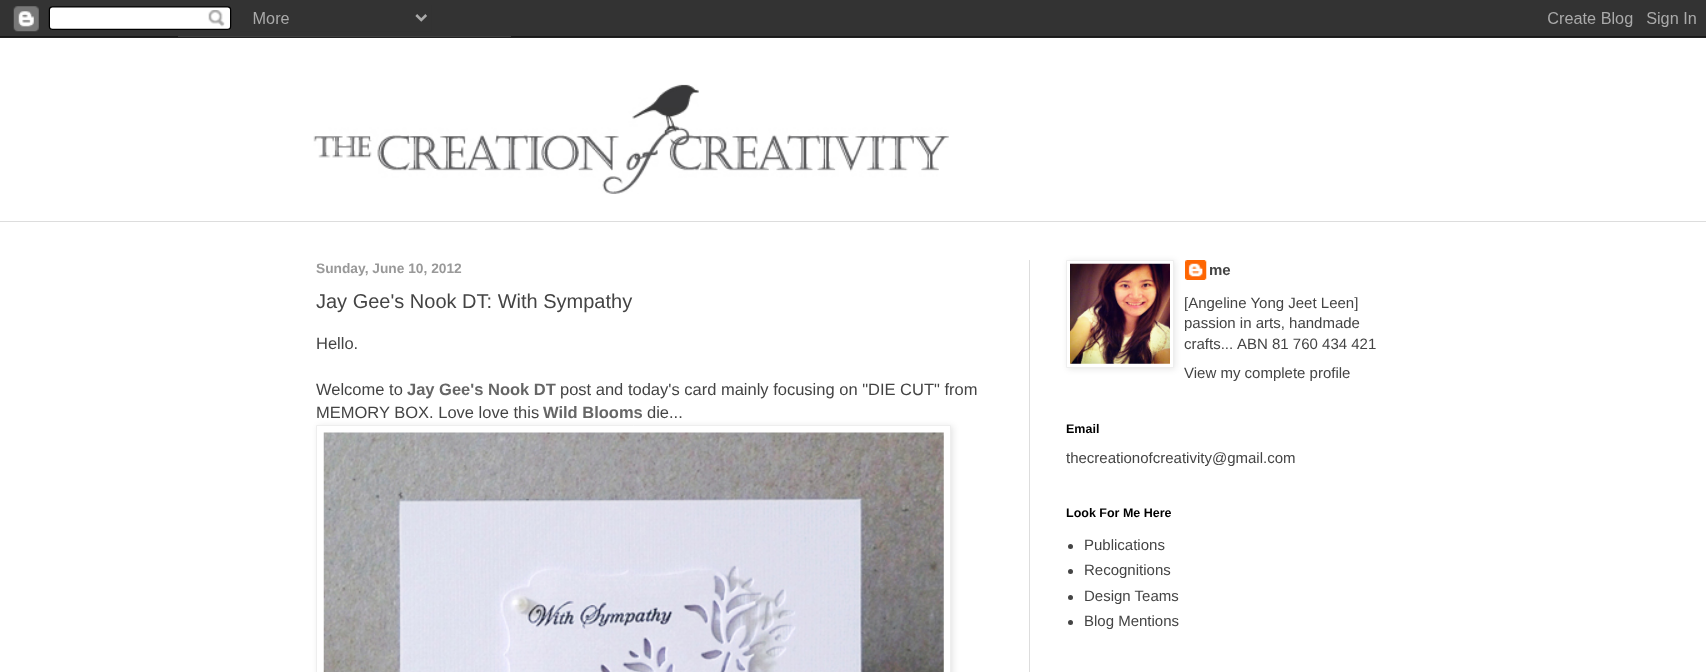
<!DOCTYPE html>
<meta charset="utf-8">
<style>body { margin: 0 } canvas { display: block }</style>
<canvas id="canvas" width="1706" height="672"></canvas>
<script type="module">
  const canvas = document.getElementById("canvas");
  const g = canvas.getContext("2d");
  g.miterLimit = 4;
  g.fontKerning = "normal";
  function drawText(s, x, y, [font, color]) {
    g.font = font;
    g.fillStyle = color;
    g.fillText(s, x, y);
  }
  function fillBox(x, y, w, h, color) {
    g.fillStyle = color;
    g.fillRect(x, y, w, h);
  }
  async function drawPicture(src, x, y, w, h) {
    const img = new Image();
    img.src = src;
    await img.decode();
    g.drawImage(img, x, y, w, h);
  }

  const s1 = ["bold 13.75px Liberation Sans", "#999999"];
  const s2 = ["20px Liberation Sans", "#444444"];
  const s3 = ["16.5px Liberation Sans", "#444444"];
  const s4 = ["bold 16.5px Liberation Sans", "#666666"];
  const s5 = ["bold 15px Liberation Sans", "#444444"];
  const s6 = ["15px Liberation Sans", "#444444"];
  const s7 = ["bold 12.5px Liberation Sans", "#000000"];

  fillBox(0, 0, 1706, 672, "#FFFFFF");
  await drawPicture("pic1.png", 0, 0, 1706, 38);
  await drawPicture("pic2.png", 313, 84, 636, 110);
  fillBox(0, 221, 1706, 1, "#DDDDDD");
  fillBox(1029, 260, 1, 412, "#DDDDDD");
  drawText("Sunday, June 10, 2012", 316, 273, s1);
  drawText("Jay Gee's Nook DT: With Sympathy", 316, 308, s2);
  drawText("Hello.", 316, 349, s3);
  drawText("Welcome to", 316, 395, s3);
  drawText("Jay Gee's Nook DT", 407, 395, s4);
  drawText("post and today's card mainly focusing on \"DIE CUT\" from", 560, 395, s3);
  drawText("MEMORY BOX. Love love this", 316, 418, s3);
  drawText("Wild Blooms", 543, 418, s4);
  drawText("die...", 647, 418, s3);
  g.fillStyle = "rgba(0, 0, 0, 0.1)";
  g.filter = "blur(3px)";
  g.beginPath();
  g.rect(318, 426, 635, 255);
  g.fill();
  g.filter = "none";
  g.fillStyle = "#FFFFFF";
  g.beginPath();
  g.rect(316.5, 425.5, 634, 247);
  g.fill();
  g.strokeStyle = "#EEEEEE";
  g.stroke();
  await drawPicture("pic3.png", 323, 432, 621, 240);
  g.fillStyle = "rgba(0, 0, 0, 0.1)";
  g.filter = "blur(3px)";
  g.beginPath();
  g.rect(1068, 261, 107, 108);
  g.fill();
  g.filter = "none";
  g.fillStyle = "#FFFFFF";
  g.beginPath();
  g.rect(1066.5, 260.5, 107, 107);
  g.fill();
  g.stroke();
  await drawPicture("pic4.png", 1070, 263, 100, 101);
  await drawPicture("pic5.png", 1185, 260, 22, 20);
  drawText("me", 1209, 275, s5);
  drawText("[Angeline Yong Jeet Leen]", 1184, 308, s6);
  drawText("passion in arts, handmade", 1184, 328, s6);
  drawText("crafts...", 1184, 349, s6);
  drawText("ABN 81 760 434 421", 1237, 349, s6);
  drawText("View my complete profile", 1184, 378, s6);
  drawText("Email", 1066, 433, s7);
  drawText("thecreationofcreativity@gmail.com", 1066, 463, s6);
  drawText("Look For Me Here", 1066, 517, s7);
  g.fillStyle = "#444444";
  g.beginPath();
  g.arc(1070.5, 546.5, 2.5, 0, Math.PI * 2);
  g.fill();
  drawText("Publications", 1084, 550, s6);
  g.beginPath();
  g.arc(1070.5, 571.5, 2.5, 0, Math.PI * 2);
  g.fill();
  drawText("Recognitions", 1084, 575, s6);
  g.beginPath();
  g.arc(1070.5, 597.5, 2.5, 0, Math.PI * 2);
  g.fill();
  drawText("Design Teams", 1084, 601, s6);
  g.beginPath();
  g.arc(1070.5, 622.5, 2.5, 0, Math.PI * 2);
  g.fill();
  drawText("Blog Mentions", 1084, 626, s6);
</script>
